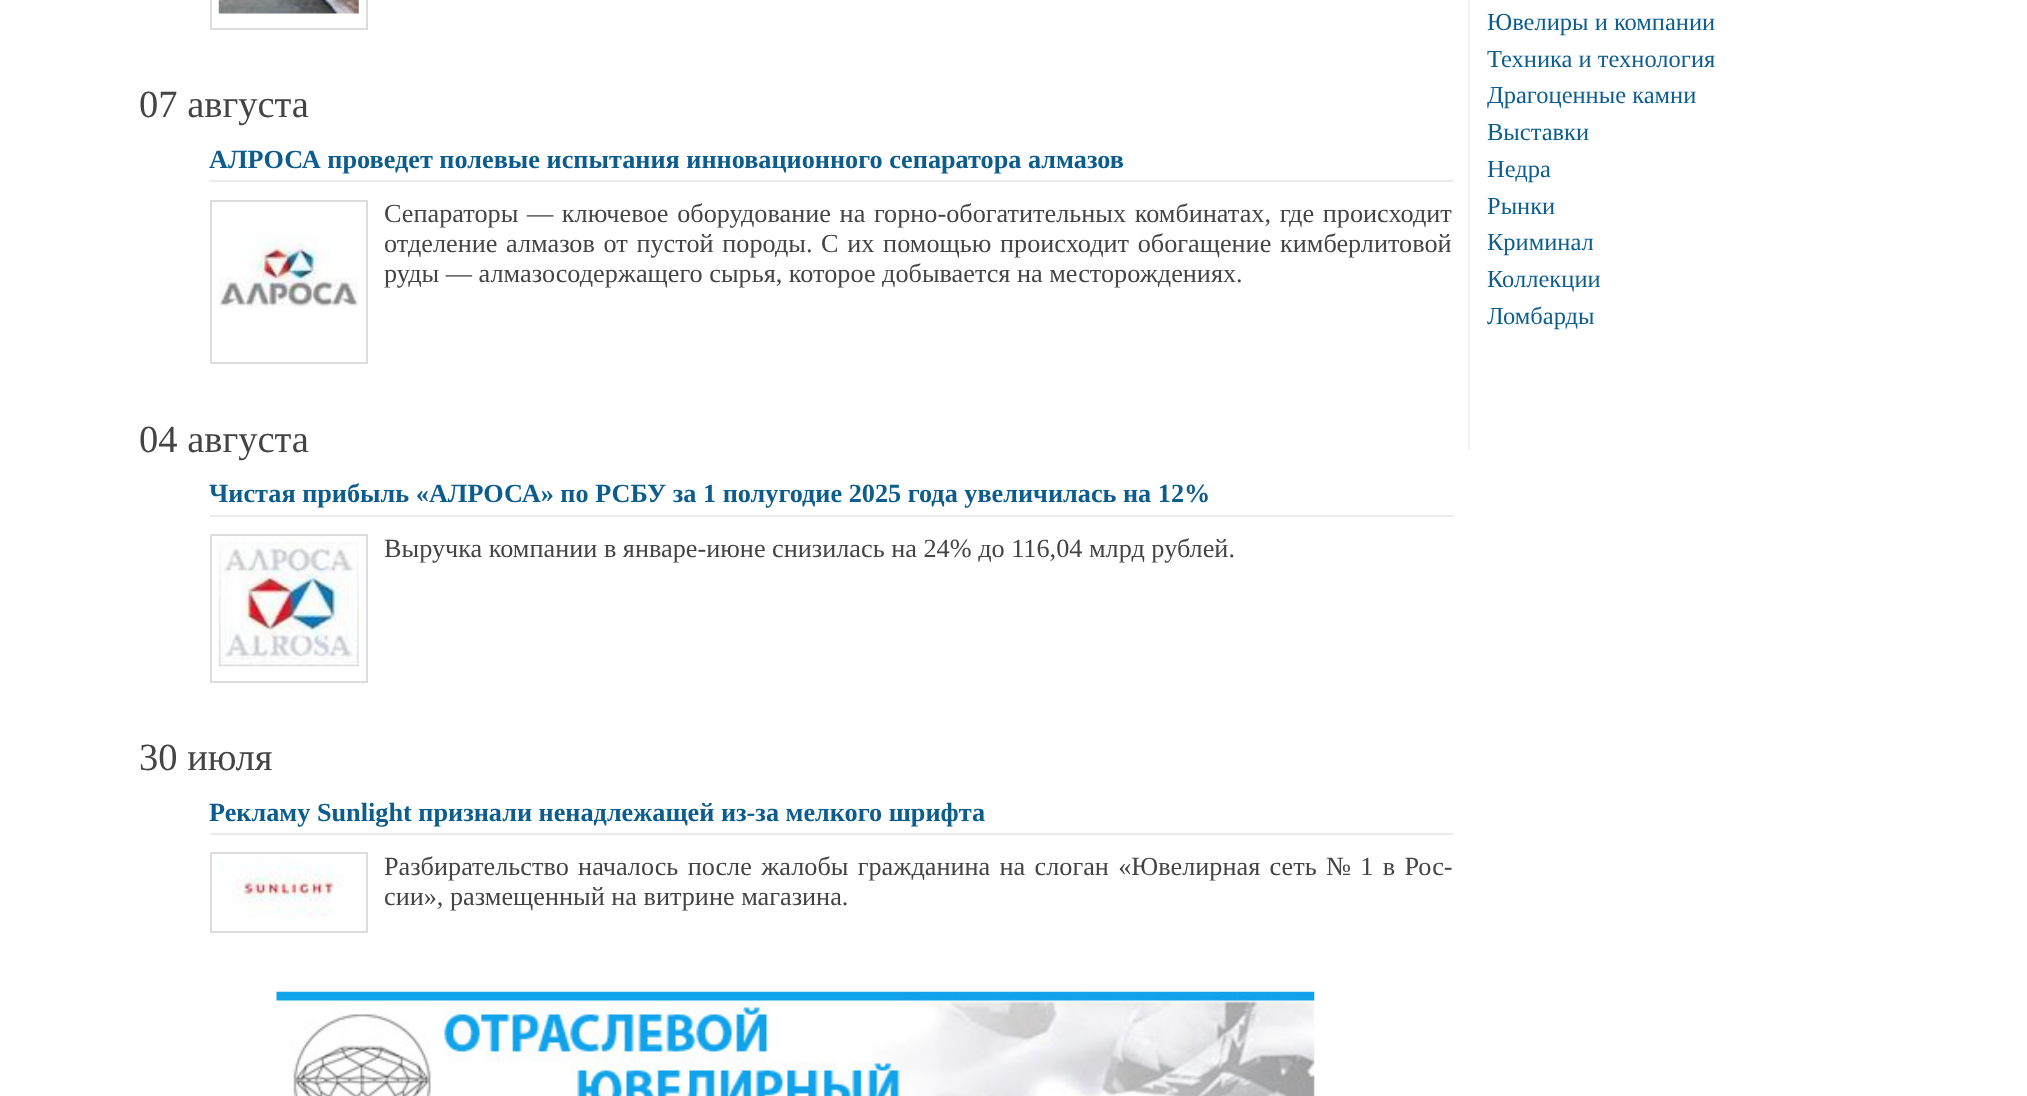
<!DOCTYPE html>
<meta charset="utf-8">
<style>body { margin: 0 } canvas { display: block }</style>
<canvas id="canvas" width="2027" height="1096"></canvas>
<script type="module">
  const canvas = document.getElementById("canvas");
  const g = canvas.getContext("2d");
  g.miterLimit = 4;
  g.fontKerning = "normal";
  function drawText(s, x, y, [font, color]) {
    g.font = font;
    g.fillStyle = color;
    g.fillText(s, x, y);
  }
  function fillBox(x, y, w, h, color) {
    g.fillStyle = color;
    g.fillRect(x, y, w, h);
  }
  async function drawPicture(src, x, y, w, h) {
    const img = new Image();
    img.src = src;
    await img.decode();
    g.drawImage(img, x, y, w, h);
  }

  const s1 = ["38.5px Liberation Serif", "#444444"];
  const s2 = ["bold 26.25px Liberation Serif", "#0C5D8D"];
  const s3 = ["26.25px Liberation Serif", "#444444"];
  const s4 = ["24.5px Liberation Serif", "#0C5D8D"];

  fillBox(0, 0, 2027, 1096, "#FFFFFF");
  g.strokeStyle = "#DCDCDC";
  g.lineWidth = 2;
  g.strokeRect(211, -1, 156, 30);
  await drawPicture("pic1.png", 218, 0, 141, 14);
  drawText("07 августа", 139, 117, s1);
  fillBox(210, 180, 1243, 2, "#EBEBEB");
  drawText("АЛРОСА проведет полевые испытания инновационного сепаратора алмазов", 209, 168, s2);
  g.strokeRect(211, 201, 156, 162);
  await drawPicture("pic2.png", 219, 235, 140, 73);
  g.wordSpacing = "2.1px";
  drawText("Сепараторы — ключевое оборудование на горно-обогатительных комбинатах, где происходит", 384, 222, s3);
  drawText("отделение алмазов от пустой породы. С их помощью происходит обогащение кимберлитовой", 384, 252, s3);
  g.wordSpacing = "0px";
  drawText("руды — алмазосодержащего сырья, которое добывается на месторождениях.", 384, 282, s3);
  drawText("04 августа", 139, 452, s1);
  fillBox(210, 515, 1243, 2, "#EBEBEB");
  drawText("Чистая прибыль «АЛРОСА» по РСБУ за 1 полугодие 2025 года увеличилась на 12%", 209, 502, s2);
  g.strokeRect(211, 535, 156, 147);
  await drawPicture("pic3.png", 218, 542, 141, 125);
  drawText("Выручка компании в январе-июне снизилась на 24% до 116,04 млрд рублей.", 384, 557, s3);
  drawText("30 июля", 139, 770, s1);
  fillBox(210, 833, 1243, 2, "#EBEBEB");
  drawText("Рекламу Sunlight признали ненадлежащей из-за мелкого шрифта", 209, 821, s2);
  g.strokeRect(211, 853, 156, 79);
  await drawPicture("pic4.png", 219, 860, 125, 57);
  g.wordSpacing = "2.75px";
  drawText("Разбирательство началось после жалобы гражданина на слоган «Ювелирная сеть № 1 в Рос-", 384, 875, s3);
  g.wordSpacing = "0px";
  drawText("сии», размещенный на витрине магазина.", 384, 905, s3);
  await drawPicture("pic5.png", 276, 991, 1039, 105);
  fillBox(1468, 0, 2, 450, "#F3F1F1");
  drawText("Ювелиры и компании", 1487, 30, s4);
  drawText("Техника и технология", 1487, 67, s4);
  drawText("Драгоценные камни", 1487, 103, s4);
  drawText("Выставки", 1487, 140, s4);
  drawText("Недра", 1487, 177, s4);
  drawText("Рынки", 1487, 214, s4);
  drawText("Криминал", 1487, 250, s4);
  drawText("Коллекции", 1487, 287, s4);
  drawText("Ломбарды", 1487, 324, s4);
</script>
